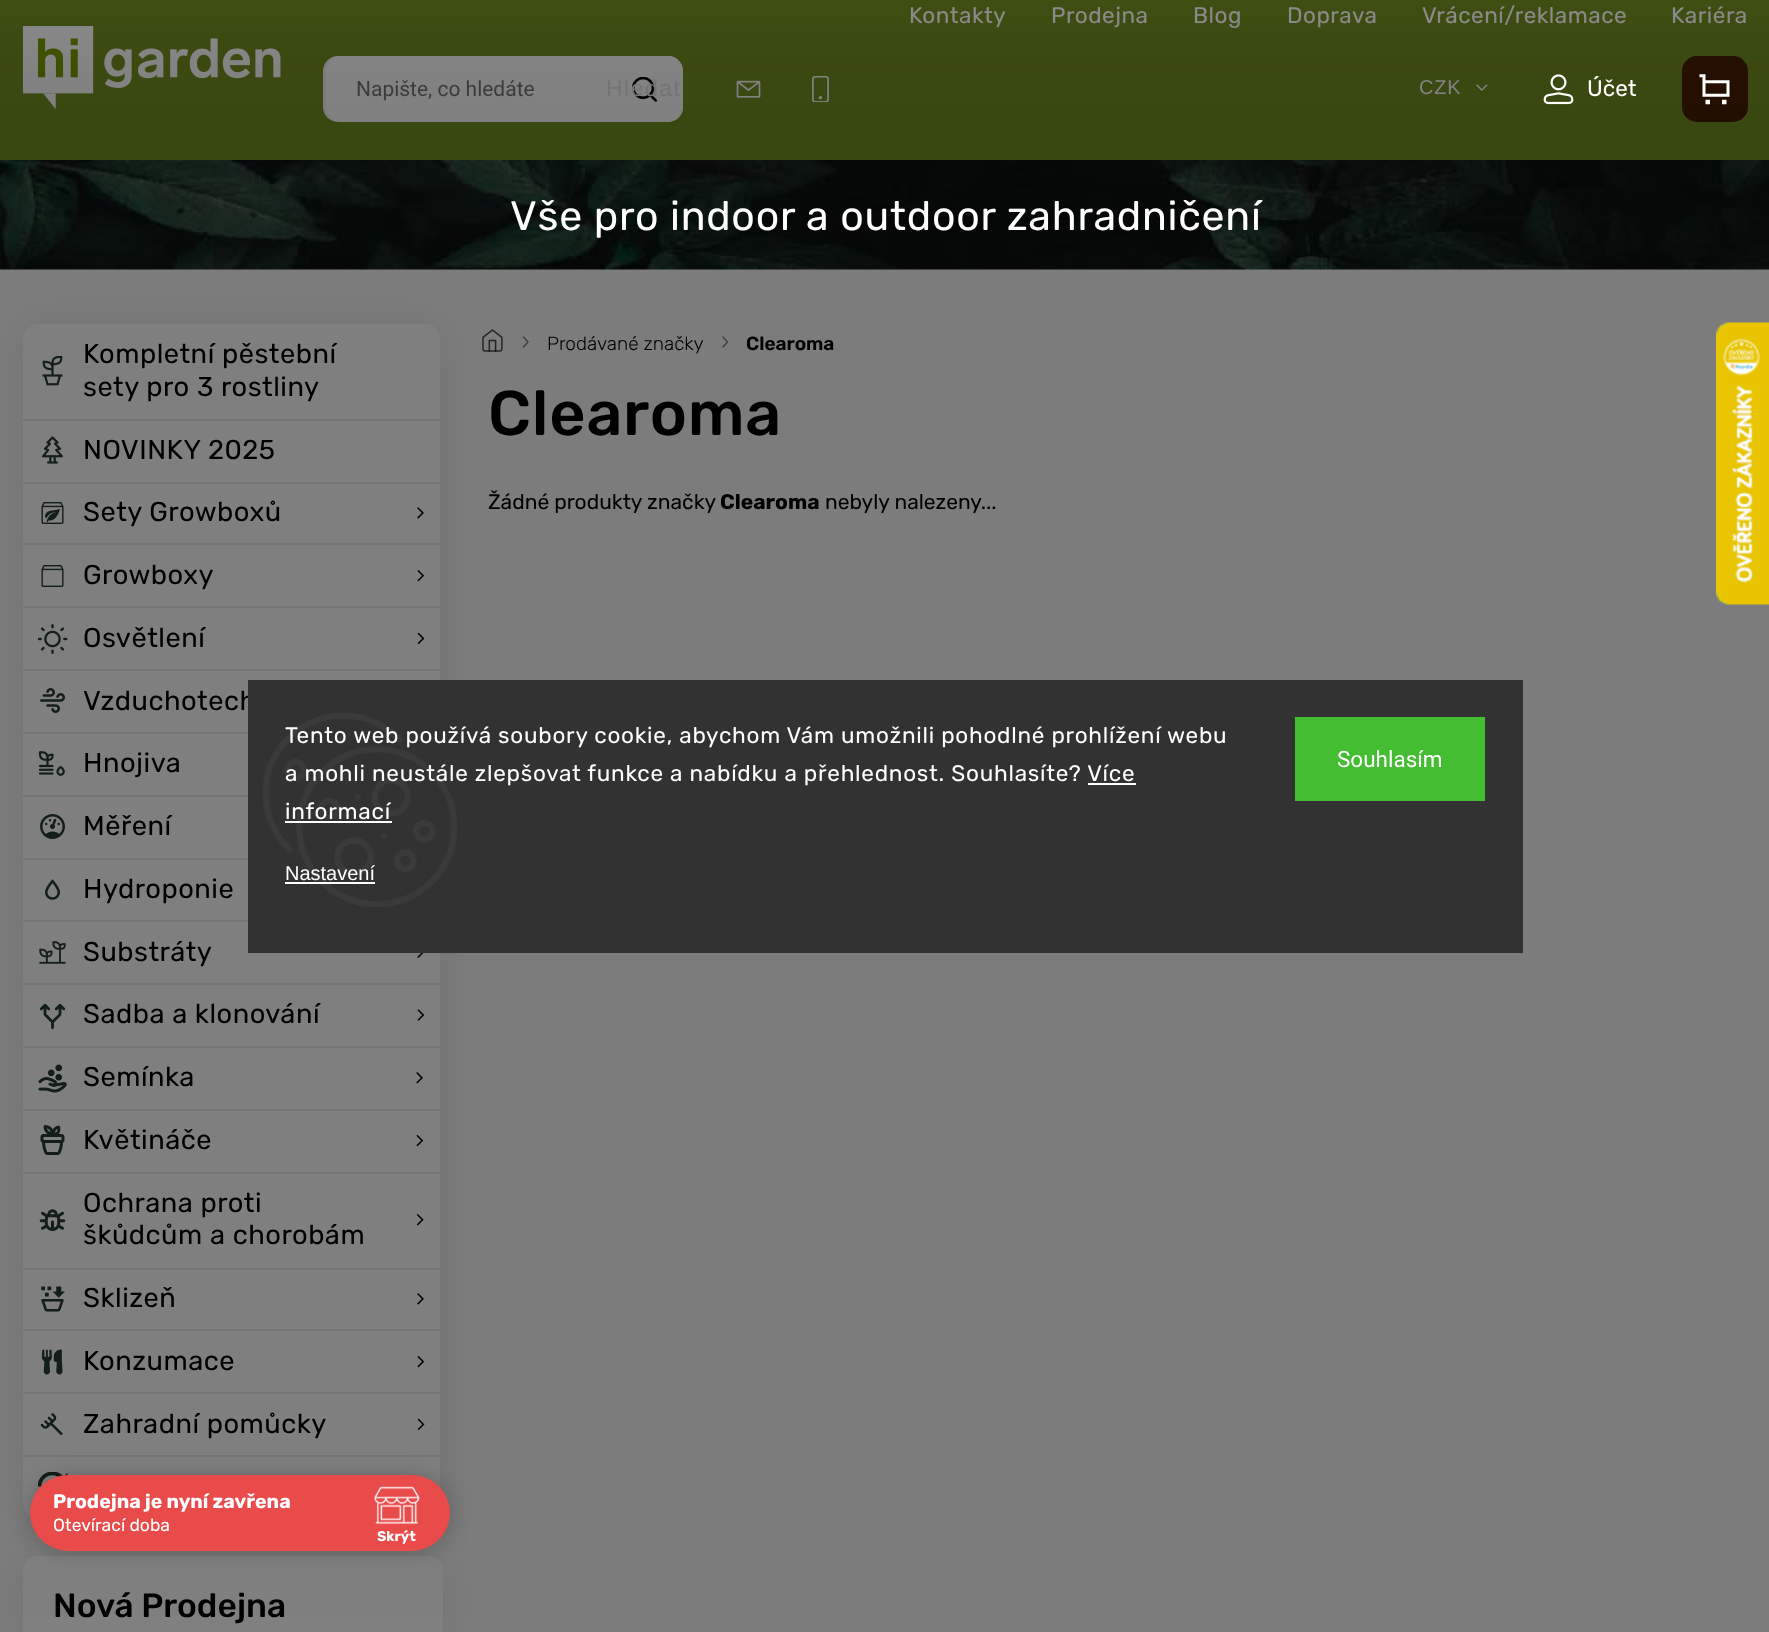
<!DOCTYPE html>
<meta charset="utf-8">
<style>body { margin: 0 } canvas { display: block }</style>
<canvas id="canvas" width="1769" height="1632"></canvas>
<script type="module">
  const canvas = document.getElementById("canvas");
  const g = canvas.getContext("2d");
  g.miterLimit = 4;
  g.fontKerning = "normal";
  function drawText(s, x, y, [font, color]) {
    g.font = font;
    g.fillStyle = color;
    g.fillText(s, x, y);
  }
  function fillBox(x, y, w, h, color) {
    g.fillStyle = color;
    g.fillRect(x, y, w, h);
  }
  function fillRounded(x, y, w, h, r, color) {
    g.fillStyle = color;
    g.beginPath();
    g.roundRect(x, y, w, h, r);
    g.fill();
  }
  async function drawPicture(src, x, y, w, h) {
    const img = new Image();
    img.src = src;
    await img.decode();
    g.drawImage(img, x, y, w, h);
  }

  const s1 = ["22.5px Rubik", "#FFFFFF"];
  const s2 = ["21px Roboto", "#767676"];
  const s3 = ["23px Liberation Sans", "#E5E5E5"];
  const s4 = ["20px Liberation Sans", "#FFFFFF"];
  const s5 = ["41px Rubik", "#FFFFFF"];
  const s6 = ["300 19px Rubik", "#000000"];
  const s7 = ["600 19px Rubik", "#000000"];
  const s8 = ["27.25px Rubik", "#000000"];
  const s9 = ["500 33.5px Rubik", "#000000"];
  const s10 = ["500 63px Rubik", "#000000"];
  const s11 = ["21px Rubik", "#000000"];
  const s12 = ["bold 21px Rubik", "#000000"];
  const s13 = ["22.5px Roboto", "#FFFFFF"];
  const s14 = ["bold 19.5px Rubik", "#FFFFFF"];
  const s15 = ["17.5px Rubik", "#FFFFFF"];
  const s16 = ["bold 14px Rubik", "#FFFFFF"];

  fillBox(0, 0, 1769, 1632, "#F8F8F8");
  fillBox(0, 0, 1769, 160, "#738F22");
  g.letterSpacing = "0.5px";
  drawText("Kontakty", 909, 23, s1);
  drawText("Prodejna", 1051, 23, s1);
  drawText("Blog", 1193, 23, s1);
  drawText("Doprava", 1287, 23, s1);
  drawText("Vrácení/reklamace", 1422, 23, s1);
  drawText("Kariéra", 1671, 23, s1);
  await drawPicture("pic1.png", 736, 80, 25, 18);
  await drawPicture("pic2.png", 812, 76, 17, 26);
  await drawPicture("pic3.png", 23, 26, 258, 83);
  fillRounded(323, 56, 360, 66, 15, "#F5F5F5");
  g.fillStyle = "#FFFFFF";
  g.beginPath();
  g.roundRect(326, 56, 279, 66, [15, 0, 0, 15]);
  g.fill();
  g.letterSpacing = "0px";
  drawText("Napište, co hledáte", 356, 96, s2);
  g.fillStyle = "#FFFFFF";
  g.beginPath();
  g.roundRect(605, 56, 78, 66, [0, 15, 15, 0]);
  g.fill();
  await drawPicture("pic4.png", 632, 77, 25, 25);
  g.letterSpacing = "1.5px";
  drawText("Hledat", 606, 96, s3);
  g.letterSpacing = "0.75px";
  drawText("CZK", 1419, 94, s4);
  await drawPicture("pic5.png", 1476, 84, 12, 7);
  fillRounded(1682, 56, 66, 66, 15, "#471F00");
  await drawPicture("pic8.png", 0, 160, 1769, 110);
  await drawPicture("pic9.png", 482, 329, 21, 23);
  g.beginPath();
  g.moveTo(523.5, 347);
  g.lineTo(528, 342);
  g.lineTo(523.5, 337);
  g.strokeStyle = "#777777";
  g.lineWidth = 1.2;
  g.lineCap = "round";
  g.lineJoin = "round";
  g.stroke();
  g.beginPath();
  g.moveTo(723, 347);
  g.lineTo(727.5, 342);
  g.lineTo(723, 337);
  g.stroke();
  g.fillStyle = "rgba(0, 0, 0, 0.07)";
  g.filter = "blur(22.5px)";
  g.beginPath();
  g.roundRect(23, 1556, 420, 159, 15);
  g.fill();
  g.filter = "none";
  fillRounded(23, 1556, 420, 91, 15, "#FFFFFF");
  g.fillStyle = "rgba(0, 0, 0, 0.07)";
  g.filter = "blur(22.5px)";
  g.beginPath();
  g.roundRect(23, 324, 417, 1194, 15);
  g.fill();
  g.filter = "none";
  fillRounded(23, 324, 417, 1194, 15, "#FFFFFF");
  fillBox(23, 419, 417, 2, "#EAEAEA");
  await drawPicture("pic10.png", 42, 356, 21, 30);
  fillBox(23, 482, 417, 2, "#EAEAEA");
  await drawPicture("pic11.png", 42, 436, 21, 28);
  fillBox(23, 543, 417, 2, "#EAEAEA");
  await drawPicture("pic12.png", 41, 502, 23, 22);
  await drawPicture("pic13.png", 417, 507, 7, 12);
  fillBox(23, 606, 417, 2, "#EAEAEA");
  await drawPicture("pic14.png", 41, 565, 23, 22);
  await drawPicture("pic15.png", 417, 570, 8, 12);
  fillBox(23, 669, 417, 2, "#EAEAEA");
  await drawPicture("pic16.png", 38, 624, 30, 30);
  await drawPicture("pic17.png", 417, 632, 8, 13);
  fillBox(23, 732, 225, 2, "#EAEAEA");
  await drawPicture("pic18.png", 40, 688, 25, 25);
  fillBox(23, 795, 225, 2, "#EAEAEA");
  await drawPicture("pic19.png", 38, 751, 27, 25);
  fillBox(23, 858, 225, 2, "#EAEAEA");
  await drawPicture("pic20.png", 40, 814, 25, 25);
  fillBox(23, 920, 225, 2, "#EAEAEA");
  await drawPicture("pic21.png", 45, 879, 15, 21);
  fillBox(23, 983, 417, 2, "#EAEAEA");
  await drawPicture("pic22.png", 39, 941, 27, 23);
  await drawPicture("pic23.png", 417, 953, 7, 5);
  fillBox(23, 1046, 417, 2, "#EAEAEA");
  await drawPicture("pic24.png", 39, 1003, 27, 27);
  await drawPicture("pic25.png", 417, 1009, 8, 12);
  fillBox(23, 1109, 417, 2, "#EAEAEA");
  await drawPicture("pic26.png", 38, 1064, 29, 29);
  await drawPicture("pic27.png", 416, 1072, 7, 12);
  fillBox(23, 1172, 417, 2, "#EAEAEA");
  await drawPicture("pic28.png", 40, 1125, 25, 30);
  await drawPicture("pic29.png", 416, 1134, 8, 13);
  fillBox(23, 1268, 417, 2, "#EAEAEA");
  await drawPicture("pic30.png", 39, 1209, 27, 22);
  await drawPicture("pic31.png", 416, 1214, 8, 12);
  fillBox(23, 1329, 417, 2, "#EAEAEA");
  await drawPicture("pic32.png", 41, 1286, 24, 26);
  await drawPicture("pic33.png", 417, 1293, 7, 12);
  fillBox(23, 1392, 417, 2, "#EAEAEA");
  await drawPicture("pic34.png", 41, 1349, 22, 26);
  await drawPicture("pic35.png", 417, 1355, 8, 13);
  fillBox(23, 1455, 417, 2, "#EAEAEA");
  await drawPicture("pic36.png", 40, 1413, 23, 23);
  await drawPicture("pic37.png", 417, 1418, 8, 13);
  await drawPicture("pic38.png", 38, 1472, 30, 15);
  g.fillStyle = "rgba(0, 0, 0, 0.5)";
  g.filter = "blur(120px)";
  g.beginPath();
  g.rect(-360, -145, 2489, 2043);
  g.fill();
  g.filter = "none";
  await drawPicture("pic6.png", 1543, 74, 31, 31);
  g.letterSpacing = "0px";
  drawText("Účet", 1587, 96, s1);
  await drawPicture("pic7.png", 1699, 74, 31, 31);
  g.letterSpacing = "0.75px";
  drawText("Vše pro indoor a outdoor zahradničení", 510, 230, s5);
  g.letterSpacing = "0px";
  drawText("Prodávané značky", 547, 350, s6);
  drawText("Clearoma", 746, 350, s7);
  g.letterSpacing = "0.5px";
  drawText("Kompletní pěstební", 83, 363, s8);
  drawText("sety pro 3 rostliny", 83, 396, s8);
  drawText("NOVINKY 2025", 83, 459, s8);
  drawText("Sety Growboxů", 83, 521, s8);
  drawText("Growboxy", 83, 584, s8);
  drawText("Osvětlení", 83, 647, s8);
  drawText("Vzduchotech", 83, 710, s8);
  drawText("Hnojiva", 83, 772, s8);
  drawText("Měření", 83, 835, s8);
  drawText("Hydroponie", 83, 898, s8);
  drawText("Substráty", 83, 961, s8);
  drawText("Sadba a klonování", 83, 1023, s8);
  drawText("Semínka", 83, 1086, s8);
  drawText("Květináče", 83, 1149, s8);
  drawText("Ochrana proti", 83, 1212, s8);
  drawText("škůdcům a chorobám", 83, 1244, s8);
  drawText("Sklizeň", 83, 1307, s8);
  drawText("Konzumace", 83, 1370, s8);
  drawText("Zahradní pomůcky", 83, 1433, s8);
  g.letterSpacing = "0px";
  drawText("Nová Prodejna", 53, 1617, s9);
  g.letterSpacing = "0.75px";
  drawText("Clearoma", 488, 435, s10);
  g.letterSpacing = "0px";
  drawText("Žádné produkty značky", 488, 509, s11);
  drawText("Clearoma", 720, 509, s12);
  drawText("nebyly nalezeny...", 825, 509, s11);
  await drawPicture("pic39.png", 1716, 322, 53, 283);
  fillBox(248, 680, 1275, 273, "#323232");
  await drawPicture("pic40.png", 263, 713, 194, 194);
  g.letterSpacing = "0.75px";
  drawText("Tento web používá soubory cookie, abychom Vám umožnili pohodlné prohlížení webu", 285, 743, s1);
  drawText("a mohli neustále zlepšovat funkce a nabídku a přehlednost. Souhlasíte? Více", 285, 781, s1);
  drawText("informací", 285, 819, s1);
  fillBox(1088, 783, 48, 2, "#FFFFFF");
  fillBox(285, 821, 107, 2, "#FFFFFF");
  g.letterSpacing = "0px";
  drawText("Nastavení", 285, 880, s4);
  fillBox(285, 882, 90, 2, "#FFFFFF");
  fillBox(1295, 717, 190, 84, "#44BD32");
  drawText("Souhlasím", 1337, 767, s13);
  g.fillStyle = "rgba(0, 0, 0, 0.2)";
  g.filter = "blur(11px)";
  g.beginPath();
  g.roundRect(30, 1475, 420, 76, 38);
  g.fill();
  g.filter = "none";
  fillRounded(30, 1475, 420, 76, 38, "#E94B4B");
  drawText("Prodejna je nyní zavřena", 53, 1508, s14);
  drawText("Otevírací doba", 53, 1531, s15);
  await drawPicture("pic41.png", 373, 1486, 47, 39);
  drawText("Skrýt", 377, 1541, s16);
</script>
